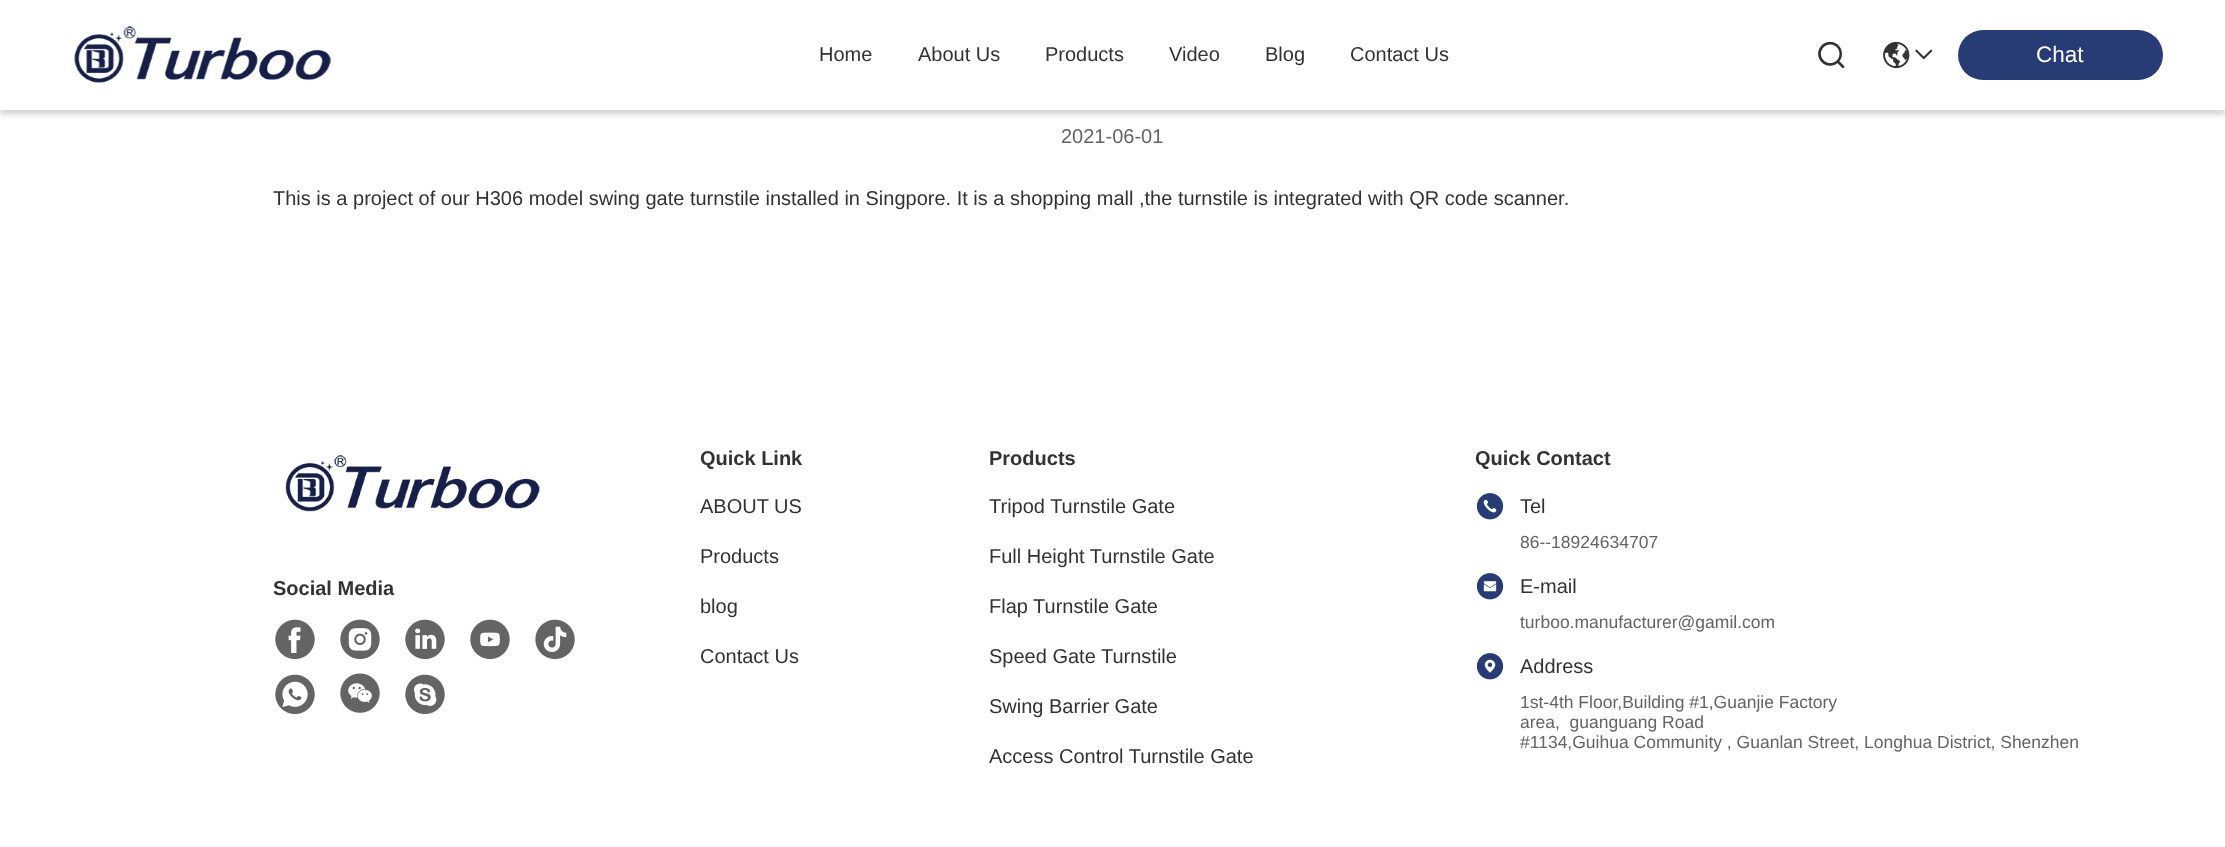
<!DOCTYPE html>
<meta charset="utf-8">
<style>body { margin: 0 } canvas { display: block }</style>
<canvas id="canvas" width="2225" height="847"></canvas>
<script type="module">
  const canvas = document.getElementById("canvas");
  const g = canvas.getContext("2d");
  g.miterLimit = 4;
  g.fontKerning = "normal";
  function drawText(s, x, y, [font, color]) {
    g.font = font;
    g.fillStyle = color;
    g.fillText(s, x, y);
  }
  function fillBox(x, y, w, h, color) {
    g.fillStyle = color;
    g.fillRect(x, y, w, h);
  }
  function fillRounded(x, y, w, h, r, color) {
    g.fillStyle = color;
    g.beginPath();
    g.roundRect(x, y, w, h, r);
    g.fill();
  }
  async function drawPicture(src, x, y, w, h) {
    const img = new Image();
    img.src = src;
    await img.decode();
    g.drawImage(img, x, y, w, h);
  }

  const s1 = ["20px Liberation Sans", "#323232"];
  const s2 = ["22.5px Liberation Sans", "#FFFFFF"];
  const s3 = ["20px Liberation Sans", "#646464"];
  const s4 = ["bold 20px Liberation Sans", "#323232"];
  const s5 = ["17.5px Liberation Sans", "#646464"];

  fillBox(0, 0, 2225, 847, "#FFFFFF");
  g.fillStyle = "rgba(0, 0, 0, 0.15)";
  g.filter = "blur(2.5px)";
  g.beginPath();
  g.rect(0, 5, 2225, 110);
  g.fill();
  g.filter = "none";
  fillBox(0, 1, 2225, 109, "#FFFFFF");
  await drawPicture("pic1.png", 74, 26, 257, 57);
  drawText("Home", 819, 61, s1);
  drawText("About Us", 918, 61, s1);
  drawText("Products", 1045, 61, s1);
  drawText("Video", 1169, 61, s1);
  drawText("Blog", 1265, 61, s1);
  drawText("Contact Us", 1350, 61, s1);
  await drawPicture("pic2.png", 1818, 41, 27, 28);
  await drawPicture("pic3.png", 1883, 41, 27, 28);
  await drawPicture("pic4.png", 1915, 49, 18, 11);
  fillRounded(1958, 30, 205, 50, 25, "#273C75");
  drawText("Chat", 2036, 62, s2);
  drawText("2021-06-01", 1061, 143, s3);
  drawText("This is a project of our H306 model swing gate turnstile installed in Singpore. It is a shopping mall ,the turnstile is integrated with QR code scanner.", 273, 205, s1);
  await drawPicture("pic5.png", 285, 455, 255, 57);
  drawText("Social Media", 273, 595, s4);
  await drawPicture("pic6.png", 275, 619, 40, 41);
  await drawPicture("pic7.png", 340, 619, 40, 41);
  await drawPicture("pic8.png", 405, 619, 40, 41);
  await drawPicture("pic9.png", 470, 619, 40, 41);
  await drawPicture("pic10.png", 535, 619, 40, 41);
  await drawPicture("pic11.png", 275, 674, 40, 41);
  await drawPicture("pic12.png", 340, 673, 40, 40);
  await drawPicture("pic13.png", 405, 674, 40, 40);
  drawText("Quick Link", 700, 465, s4);
  drawText("ABOUT US", 700, 513, s1);
  drawText("Products", 700, 563, s1);
  drawText("blog", 700, 613, s1);
  drawText("Contact Us", 700, 663, s1);
  drawText("Products", 989, 465, s4);
  drawText("Tripod Turnstile Gate", 989, 513, s1);
  drawText("Full Height Turnstile Gate", 989, 563, s1);
  drawText("Flap Turnstile Gate", 989, 613, s1);
  drawText("Speed Gate Turnstile", 989, 663, s1);
  drawText("Swing Barrier Gate", 989, 713, s1);
  drawText("Access Control Turnstile Gate", 989, 763, s1);
  drawText("Quick Contact", 1475, 465, s4);
  await drawPicture("pic14.png", 1476, 493, 28, 27);
  drawText("Tel", 1520, 513, s1);
  drawText("86--18924634707", 1520, 548, s5);
  await drawPicture("pic15.png", 1476, 573, 28, 27);
  drawText("E-mail", 1520, 593, s1);
  drawText("turboo.manufacturer@gamil.com", 1520, 628, s5);
  await drawPicture("pic16.png", 1476, 653, 28, 27);
  drawText("Address", 1520, 673, s1);
  drawText("1st-4th Floor,Building #1,Guanjie Factory", 1520, 708, s5);
  drawText("area,  guanguang Road", 1520, 728, s5);
  drawText("#1134,Guihua Community , Guanlan Street, Longhua District, Shenzhen", 1520, 748, s5);
</script>
